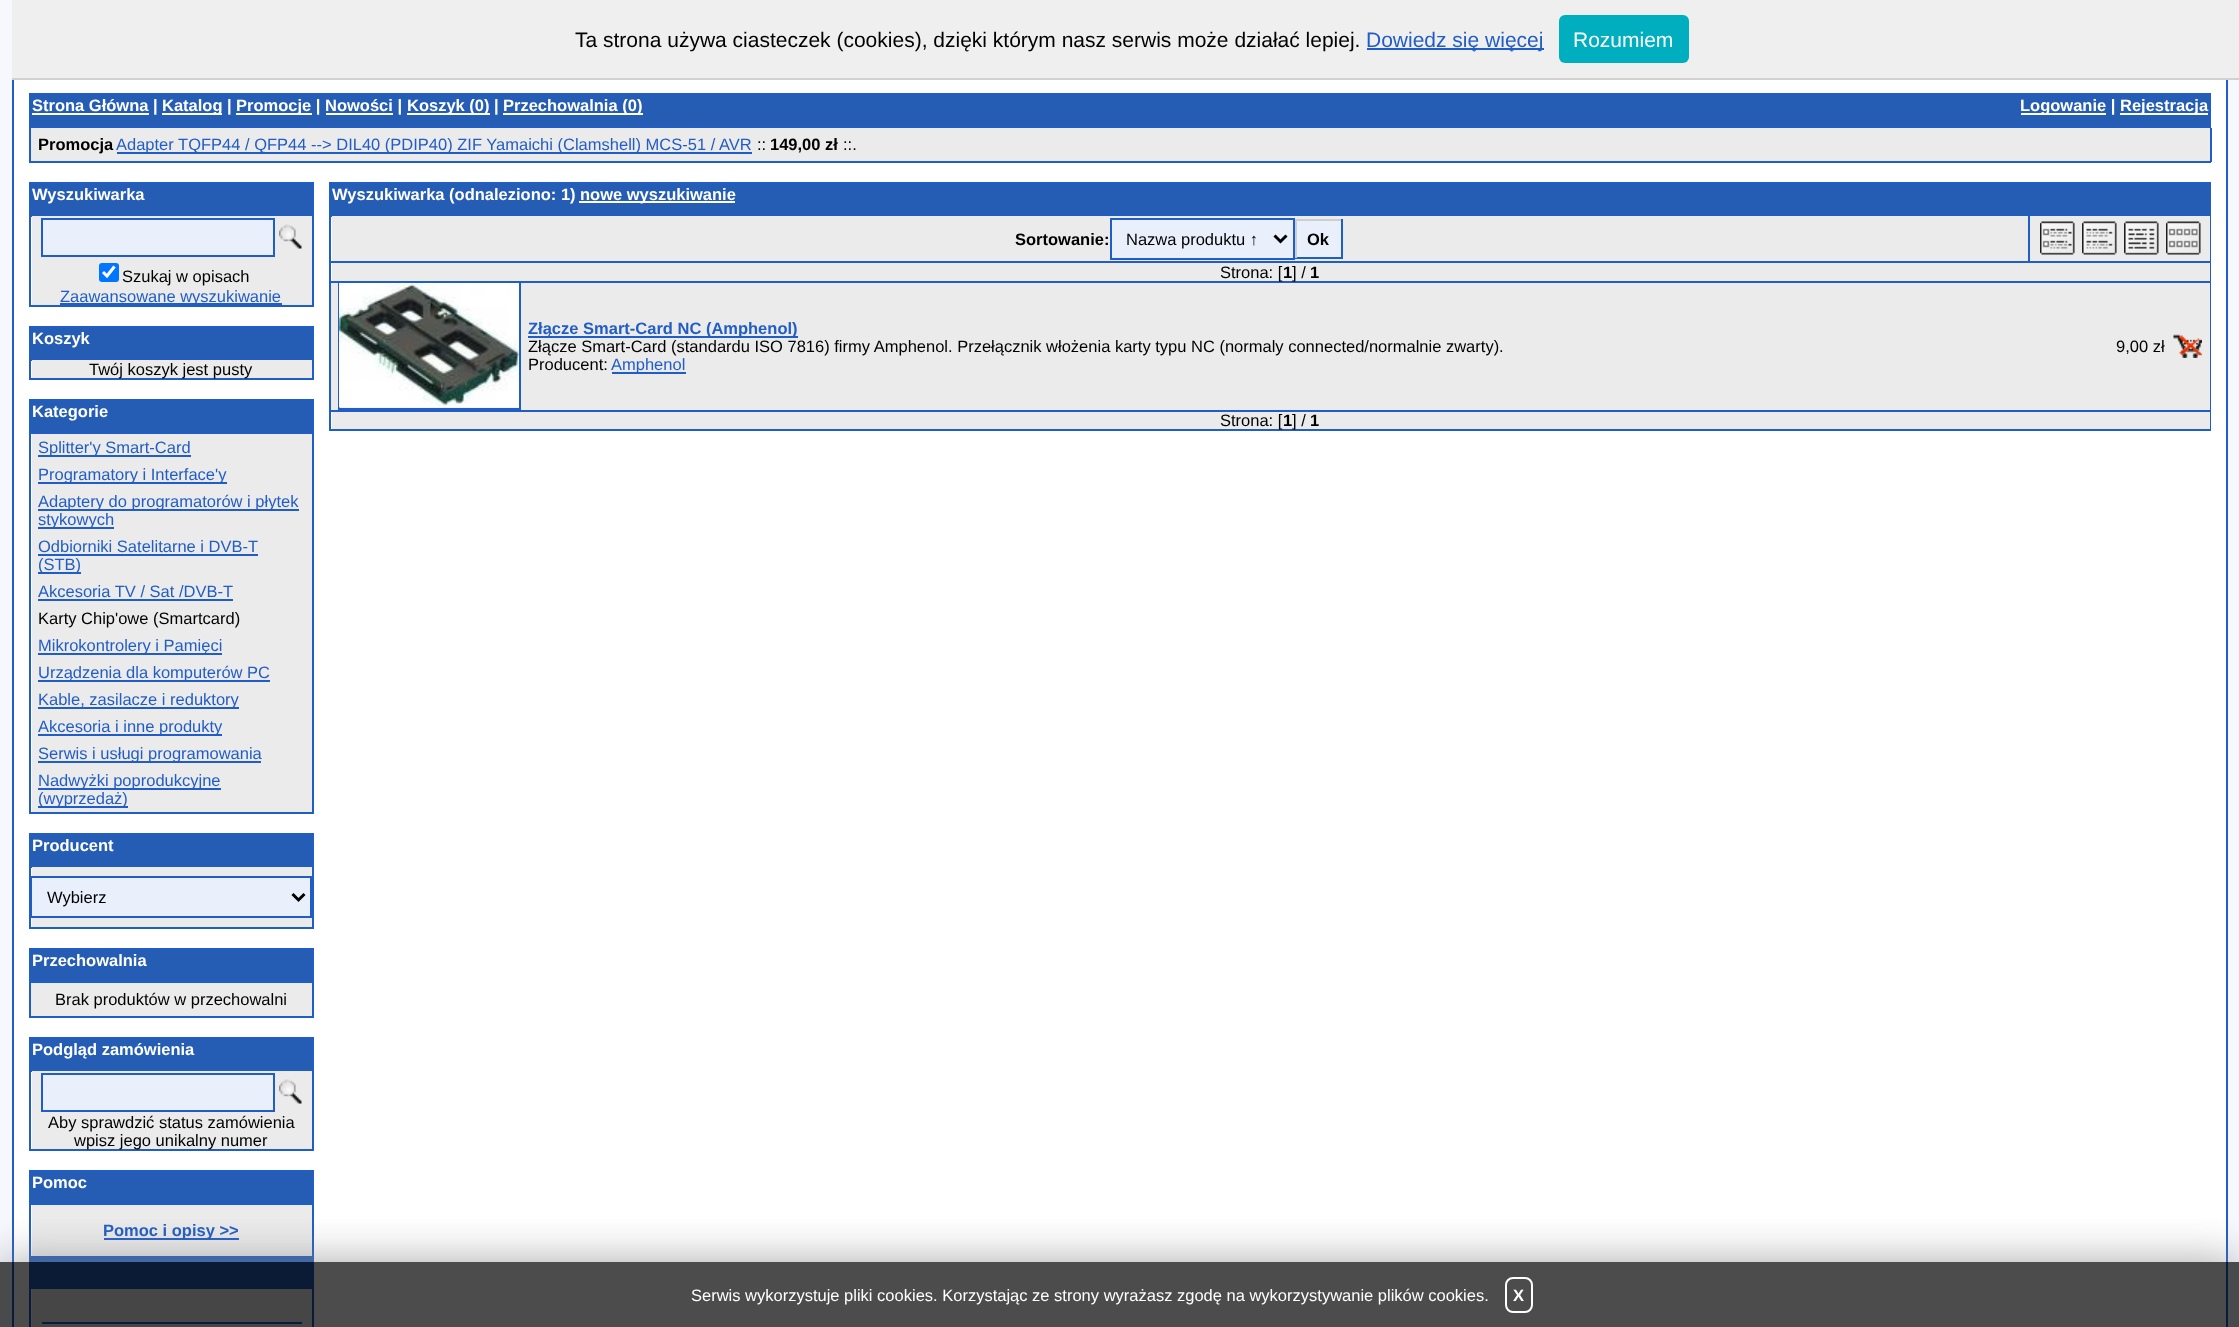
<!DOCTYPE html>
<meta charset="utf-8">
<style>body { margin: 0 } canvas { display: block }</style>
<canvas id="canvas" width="2239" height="1327"></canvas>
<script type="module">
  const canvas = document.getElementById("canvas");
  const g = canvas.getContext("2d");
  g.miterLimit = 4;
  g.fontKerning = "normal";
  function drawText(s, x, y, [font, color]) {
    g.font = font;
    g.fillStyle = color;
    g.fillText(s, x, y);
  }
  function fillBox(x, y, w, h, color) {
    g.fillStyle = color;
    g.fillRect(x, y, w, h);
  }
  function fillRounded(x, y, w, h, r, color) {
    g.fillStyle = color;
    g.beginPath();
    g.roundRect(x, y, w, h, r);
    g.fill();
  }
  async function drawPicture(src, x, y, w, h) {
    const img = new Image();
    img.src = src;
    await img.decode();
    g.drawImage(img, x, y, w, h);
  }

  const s1 = ["21px Liberation Sans", "#000000"];
  const s2 = ["21px Liberation Sans", "#215DC6"];
  const s3 = ["21px Liberation Sans", "#FFFFFF"];
  const s4 = ["bold 16.5px Liberation Sans", "#FFFFFF"];
  const s5 = ["bold 16.5px Liberation Sans", "#000000"];
  const s6 = ["16.5px Liberation Sans", "#215DC6"];
  const s7 = ["16.5px Liberation Sans", "#000000"];
  const s8 = ["bold 16.5px Liberation Sans", "#215DC6"];
  const s9 = ["16.5px Liberation Sans", "#FFFFFF"];

  fillBox(0, 0, 2239, 1327, "#F6F8FE");
  fillBox(14, 80, 2212, 1247, "#FFFFFF");
  g.strokeStyle = "#215DC6";
  g.lineWidth = 2;
  g.strokeRect(13, -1, 2214, 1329);
  fillBox(12, 0, 2227, 78, "#EFEFEF");
  fillBox(12, 78, 2227, 2, "#D3D0D0");
  drawText("Ta strona używa ciasteczek (cookies), dzięki którym nasz serwis może działać lepiej.", 575, 47, s1);
  fillBox(1367, 48, 177, 2, "#215DC6");
  drawText("Dowiedz się więcej", 1366, 47, s2);
  fillRounded(1559, 15, 130, 48, 6, "#00AFBF");
  drawText("Rozumiem", 1573, 47, s3);
  g.fillStyle = "#255DB4";
  g.beginPath();
  g.rect(30, 94, 2180, 33);
  g.fill();
  g.stroke();
  fillBox(32, 113, 117, 2, "#FFFFFF");
  drawText("Strona Główna |", 32, 111, s4);
  fillBox(162, 113, 60, 2, "#FFFFFF");
  drawText("Katalog |", 162, 111, s4);
  fillBox(236, 113, 76, 2, "#FFFFFF");
  drawText("Promocje | Nowości |", 236, 111, s4);
  fillBox(407, 113, 67, 2, "#FFFFFF");
  drawText("Koszyk (0", 407, 111, s4);
  fillBox(474, 113, 16, 2, "#FFFFFF");
  drawText(") |", 484, 111, s4);
  fillBox(503, 113, 140, 2, "#FFFFFF");
  drawText("Przechowalnia (0)", 503, 111, s4);
  fillBox(326, 113, 67, 2, "#FFFFFF");
  fillBox(2021, 113, 85, 2, "#FFFFFF");
  drawText("Logowanie |", 2020, 111, s4);
  fillBox(2120, 113, 88, 2, "#FFFFFF");
  drawText("Rejestracja", 2120, 111, s4);
  fillBox(31, 128, 2179, 33, "#EBEBEB");
  fillBox(2210, 128, 2, 34, "#215DC6");
  fillBox(29, 161, 2182, 2, "#215DC6");
  fillBox(29, 128, 2, 34, "#215DC6");
  drawText("Promocja", 38, 150, s5);
  fillBox(117, 152, 635, 2, "#215DC6");
  drawText("Adapter TQFP44 / QFP44 --> DIL40 (PDIP40) ZIF Yamaichi (Clamshell) MCS-51 / AVR", 116, 150, s6);
  drawText("::", 757, 150, s7);
  drawText("149,00 zł", 770, 150, s5);
  drawText("::.", 843, 150, s7);
  fillBox(31, 184, 281, 31, "#255DB4");
  fillBox(29, 182, 285, 2, "#215DC6");
  fillBox(312, 182, 2, 34, "#215DC6");
  fillBox(29, 215, 285, 2, "#215DC6");
  fillBox(29, 182, 2, 34, "#215DC6");
  drawText("Wyszukiwarka", 32, 200, s4);
  fillBox(32, 216, 280, 89, "#EBEBEB");
  fillBox(312, 216, 2, 90, "#215DC6");
  fillBox(29, 305, 285, 2, "#215DC6");
  fillBox(29, 216, 2, 90, "#215DC6");
  g.fillStyle = "#EAEFFC";
  g.beginPath();
  g.rect(42, 219, 232, 37);
  g.fill();
  g.stroke();
  await drawPicture("pic1.png", 279, 224, 23, 25);
  fillRounded(99, 263, 20, 19, 3, "#0075FF");
  g.beginPath();
  g.moveTo(103, 272);
  g.lineTo(107, 276);
  g.lineTo(114.5, 266.5);
  g.strokeStyle = "#FFFFFF";
  g.lineWidth = 3.1;
  g.stroke();
  drawText("Szukaj w opisach", 122, 282, s7);
  fillBox(60, 303, 222, 2, "#215DC6");
  drawText("Zaawansowane wyszukiwanie", 60, 302, s6);
  fillBox(31, 328, 281, 31, "#255DB4");
  fillBox(29, 326, 285, 2, "#215DC6");
  fillBox(312, 326, 2, 34, "#215DC6");
  fillBox(29, 359, 285, 2, "#215DC6");
  fillBox(29, 326, 2, 34, "#215DC6");
  drawText("Koszyk", 32, 344, s4);
  fillBox(32, 360, 280, 18, "#EBEBEB");
  fillBox(312, 360, 2, 20, "#215DC6");
  fillBox(29, 378, 285, 2, "#215DC6");
  fillBox(29, 360, 2, 20, "#215DC6");
  drawText("Twój koszyk jest pusty", 89, 375, s7);
  fillBox(31, 401, 281, 31, "#255DB4");
  fillBox(29, 399, 285, 2, "#215DC6");
  fillBox(312, 399, 2, 414, "#215DC6");
  fillBox(29, 432, 285, 2, "#215DC6");
  fillBox(29, 399, 2, 35, "#215DC6");
  drawText("Kategorie", 32, 417, s4);
  fillBox(32, 434, 280, 378, "#EBEBEB");
  fillBox(29, 812, 285, 2, "#215DC6");
  fillBox(29, 434, 2, 379, "#215DC6");
  fillBox(38, 455, 153, 2, "#215DC6");
  drawText("Splitter'y Smart-Card", 38, 453, s6);
  fillBox(38, 482, 189, 2, "#215DC6");
  drawText("Programatory i Interface'y", 38, 480, s6);
  fillBox(38, 509, 261, 2, "#215DC6");
  drawText("Adaptery do programatorów i płytek", 38, 507, s6);
  fillBox(38, 527, 76, 2, "#215DC6");
  drawText("stykowych", 38, 525, s6);
  drawText("Odbiorniki Satelitarne i DVB-T", 38, 552, s6);
  fillBox(38, 554, 220, 2, "#215DC6");
  fillBox(38, 572, 43, 2, "#215DC6");
  drawText("(STB)", 38, 570, s6);
  drawText("Akcesoria TV / Sat /DVB-T", 38, 597, s6);
  fillBox(38, 599, 195, 2, "#215DC6");
  drawText("Karty Chip'owe (Smartcard)", 38, 624, s7);
  fillBox(38, 653, 184, 2, "#215DC6");
  drawText("Mikrokontrolery i Pamięci", 38, 651, s6);
  fillBox(38, 680, 232, 2, "#215DC6");
  drawText("Urządzenia dla komputerów PC", 38, 678, s6);
  fillBox(38, 707, 201, 2, "#215DC6");
  drawText("Kable, zasilacze i reduktory", 38, 705, s6);
  fillBox(38, 734, 184, 2, "#215DC6");
  drawText("Akcesoria i inne produkty", 38, 732, s6);
  fillBox(38, 761, 223, 2, "#215DC6");
  drawText("Serwis i usługi programowania", 38, 759, s6);
  fillBox(38, 788, 183, 2, "#215DC6");
  drawText("Nadwyżki poprodukcyjne", 38, 786, s6);
  fillBox(38, 806, 90, 2, "#215DC6");
  drawText("(wyprzedaż)", 38, 804, s6);
  fillBox(31, 835, 281, 31, "#255DB4");
  fillBox(29, 833, 285, 2, "#215DC6");
  fillBox(312, 833, 2, 34, "#215DC6");
  fillBox(29, 866, 285, 2, "#215DC6");
  fillBox(29, 833, 2, 34, "#215DC6");
  drawText("Producent", 32, 851, s4);
  fillBox(32, 867, 280, 60, "#EBEBEB");
  fillBox(312, 867, 2, 62, "#215DC6");
  fillBox(29, 927, 285, 2, "#215DC6");
  fillBox(29, 867, 2, 62, "#215DC6");
  g.fillStyle = "#EAEFFC";
  g.beginPath();
  g.rect(31, 877, 280, 40);
  g.fill();
  g.strokeStyle = "#215DC6";
  g.lineWidth = 2;
  g.stroke();
  g.beginPath();
  g.moveTo(292.5, 894);
  g.lineTo(298.5, 900);
  g.lineTo(304.5, 894);
  g.strokeStyle = "#000000";
  g.lineWidth = 3;
  g.stroke();
  drawText("Wybierz", 47, 903, s7);
  g.fillStyle = "#255DB4";
  g.beginPath();
  g.rect(30, 949, 283, 33);
  g.fill();
  g.strokeStyle = "#215DC6";
  g.lineWidth = 2;
  g.stroke();
  drawText("Przechowalnia", 32, 966, s4);
  fillBox(31, 983, 281, 33, "#EBEBEB");
  fillBox(312, 983, 2, 34, "#215DC6");
  fillBox(29, 1016, 285, 2, "#215DC6");
  fillBox(29, 983, 2, 34, "#215DC6");
  drawText("Brak produktów w przechowalni", 55, 1005, s7);
  fillBox(31, 1039, 281, 31, "#255DB4");
  fillBox(29, 1037, 285, 2, "#215DC6");
  fillBox(312, 1037, 2, 34, "#215DC6");
  fillBox(29, 1070, 285, 2, "#215DC6");
  fillBox(29, 1037, 2, 34, "#215DC6");
  drawText("Podgląd zamówienia", 32, 1055, s4);
  fillBox(32, 1071, 280, 78, "#EBEBEB");
  fillBox(312, 1071, 2, 80, "#215DC6");
  fillBox(29, 1149, 285, 2, "#215DC6");
  fillBox(29, 1071, 2, 80, "#215DC6");
  g.fillStyle = "#EAEFFC";
  g.beginPath();
  g.rect(42, 1074, 232, 37);
  g.fill();
  g.stroke();
  await drawPicture("pic1.png", 279, 1079, 23, 25);
  drawText("Aby sprawdzić status zamówienia", 48, 1128, s7);
  drawText("wpisz jego unikalny numer", 74, 1146, s7);
  fillBox(31, 1172, 281, 31, "#255DB4");
  fillBox(29, 1170, 285, 2, "#215DC6");
  fillBox(312, 1170, 2, 87, "#215DC6");
  fillBox(29, 1203, 285, 2, "#215DC6");
  fillBox(29, 1170, 2, 35, "#215DC6");
  drawText("Pomoc", 32, 1188, s4);
  fillBox(32, 1205, 280, 51, "#EBEBEB");
  fillBox(29, 1256, 285, 1, "#215DC6");
  fillBox(29, 1205, 2, 52, "#215DC6");
  fillBox(104, 1238, 135, 2, "#215DC6");
  drawText("Pomoc i opisy >>", 103, 1236, s8);
  fillBox(29, 1257, 285, 32, "#255DB4");
  fillBox(32, 1289, 280, 38, "#EBEBEB");
  fillBox(312, 1289, 2, 38, "#215DC6");
  fillBox(29, 1289, 2, 38, "#215DC6");
  fillBox(42, 1322, 260, 2, "#215DC6");
  fillBox(331, 184, 1879, 31, "#255DB4");
  fillBox(329, 182, 1882, 2, "#215DC6");
  fillBox(2210, 182, 1, 34, "#215DC6");
  fillBox(329, 215, 1882, 2, "#215DC6");
  fillBox(329, 182, 2, 34, "#215DC6");
  drawText("Wyszukiwarka (odnaleziono: 1)", 332, 200, s4);
  fillBox(579, 201, 156, 2, "#FFFFFF");
  drawText("nowe wyszukiwanie", 580, 200, s4);
  fillBox(332, 216, 1878, 45, "#EBEBEB");
  fillBox(2210, 216, 1, 47, "#215DC6");
  fillBox(2028, 216, 2, 47, "#215DC6");
  fillBox(329, 261, 1882, 2, "#215DC6");
  fillBox(329, 216, 2, 47, "#215DC6");
  drawText("Sortowanie:", 1015, 245, s5);
  g.fillStyle = "#EAEFFC";
  g.beginPath();
  g.rect(1111, 219, 183, 40);
  g.fill();
  g.stroke();
  g.beginPath();
  g.moveTo(1274.5, 235.5);
  g.lineTo(1280.5, 241.5);
  g.lineTo(1286.5, 235.5);
  g.strokeStyle = "#000000";
  g.lineWidth = 3;
  g.stroke();
  drawText("Nazwa produktu ↑", 1126, 245, s7);
  fillBox(1297, 221, 44, 36, "#EAEFFC");
  fillBox(1295, 219, 48, 2, "#CECECE");
  fillBox(1341, 219, 2, 39, "#215DC6");
  fillBox(1295, 257, 48, 2, "#215DC6");
  fillBox(1295, 219, 2, 39, "#CECECE");
  drawText("Ok", 1307, 245, s5);
  await drawPicture("pic2.png", 2040, 221, 35, 34);
  await drawPicture("pic3.png", 2082, 221, 35, 34);
  await drawPicture("pic4.png", 2124, 221, 35, 34);
  await drawPicture("pic5.png", 2166, 221, 35, 34);
  fillBox(332, 263, 1878, 18, "#EBEBEB");
  fillBox(2210, 263, 1, 168, "#215DC6");
  fillBox(329, 429, 1882, 2, "#215DC6");
  fillBox(329, 410, 2, 21, "#215DC6");
  fillBox(329, 410, 1882, 2, "#215DC6");
  fillBox(329, 281, 2, 130, "#215DC6");
  fillBox(329, 281, 1882, 2, "#215DC6");
  fillBox(329, 263, 2, 19, "#215DC6");
  drawText("Strona: [", 1220, 278, s7);
  drawText("1", 1283, 278, s5);
  drawText("] /", 1292, 278, s7);
  drawText("1", 1310, 278, s5);
  fillBox(331, 283, 1879, 127, "#EBEBEB");
  g.strokeStyle = "#215DC6";
  g.lineWidth = 2;
  g.strokeRect(339, 283, 181, 126);
  await drawPicture("pic6.png", 339, 283, 180, 125);
  fillBox(528, 336, 270, 2, "#215DC6");
  drawText("Złącze Smart-Card NC (Amphenol)", 528, 334, s8);
  drawText("Złącze Smart-Card (standardu ISO 7816) firmy Amphenol. Przełącznik włożenia karty typu NC (normaly connected/normalnie zwarty).", 528, 352, s7);
  drawText("Producent:", 528, 370, s7);
  fillBox(612, 372, 74, 2, "#215DC6");
  drawText("Amphenol", 611, 370, s6);
  drawText("9,00 zł", 2116, 352, s7);
  await drawPicture("pic7.png", 2173, 334, 29, 24);
  fillBox(332, 412, 1878, 17, "#EBEBEB");
  drawText("Strona: [", 1220, 426, s7);
  drawText("1", 1283, 426, s5);
  drawText("] /", 1292, 426, s7);
  drawText("1", 1310, 426, s5);
  g.save();
  g.beginPath();
  g.rect(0, 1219, 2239, 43);
  g.clip();
  g.fillStyle = "rgba(128, 128, 128, 0.7)";
  g.filter = "blur(22.5px)";
  g.beginPath();
  g.rect(0, 1262, 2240, 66);
  g.fill();
  g.filter = "none";
  g.restore();
  fillBox(0, 1262, 2239, 65, "rgba(0, 0, 0, 0.7)");
  drawText("Serwis wykorzystuje pliki cookies. Korzystając ze strony wyrażasz zgodę na wykorzystywanie plików cookies.", 691, 1301, s9);
  g.beginPath();
  g.roundRect(1506, 1278, 26, 34, 7);
  g.strokeStyle = "#FFFFFF";
  g.stroke();
  drawText("X", 1513, 1301, s4);
</script>
